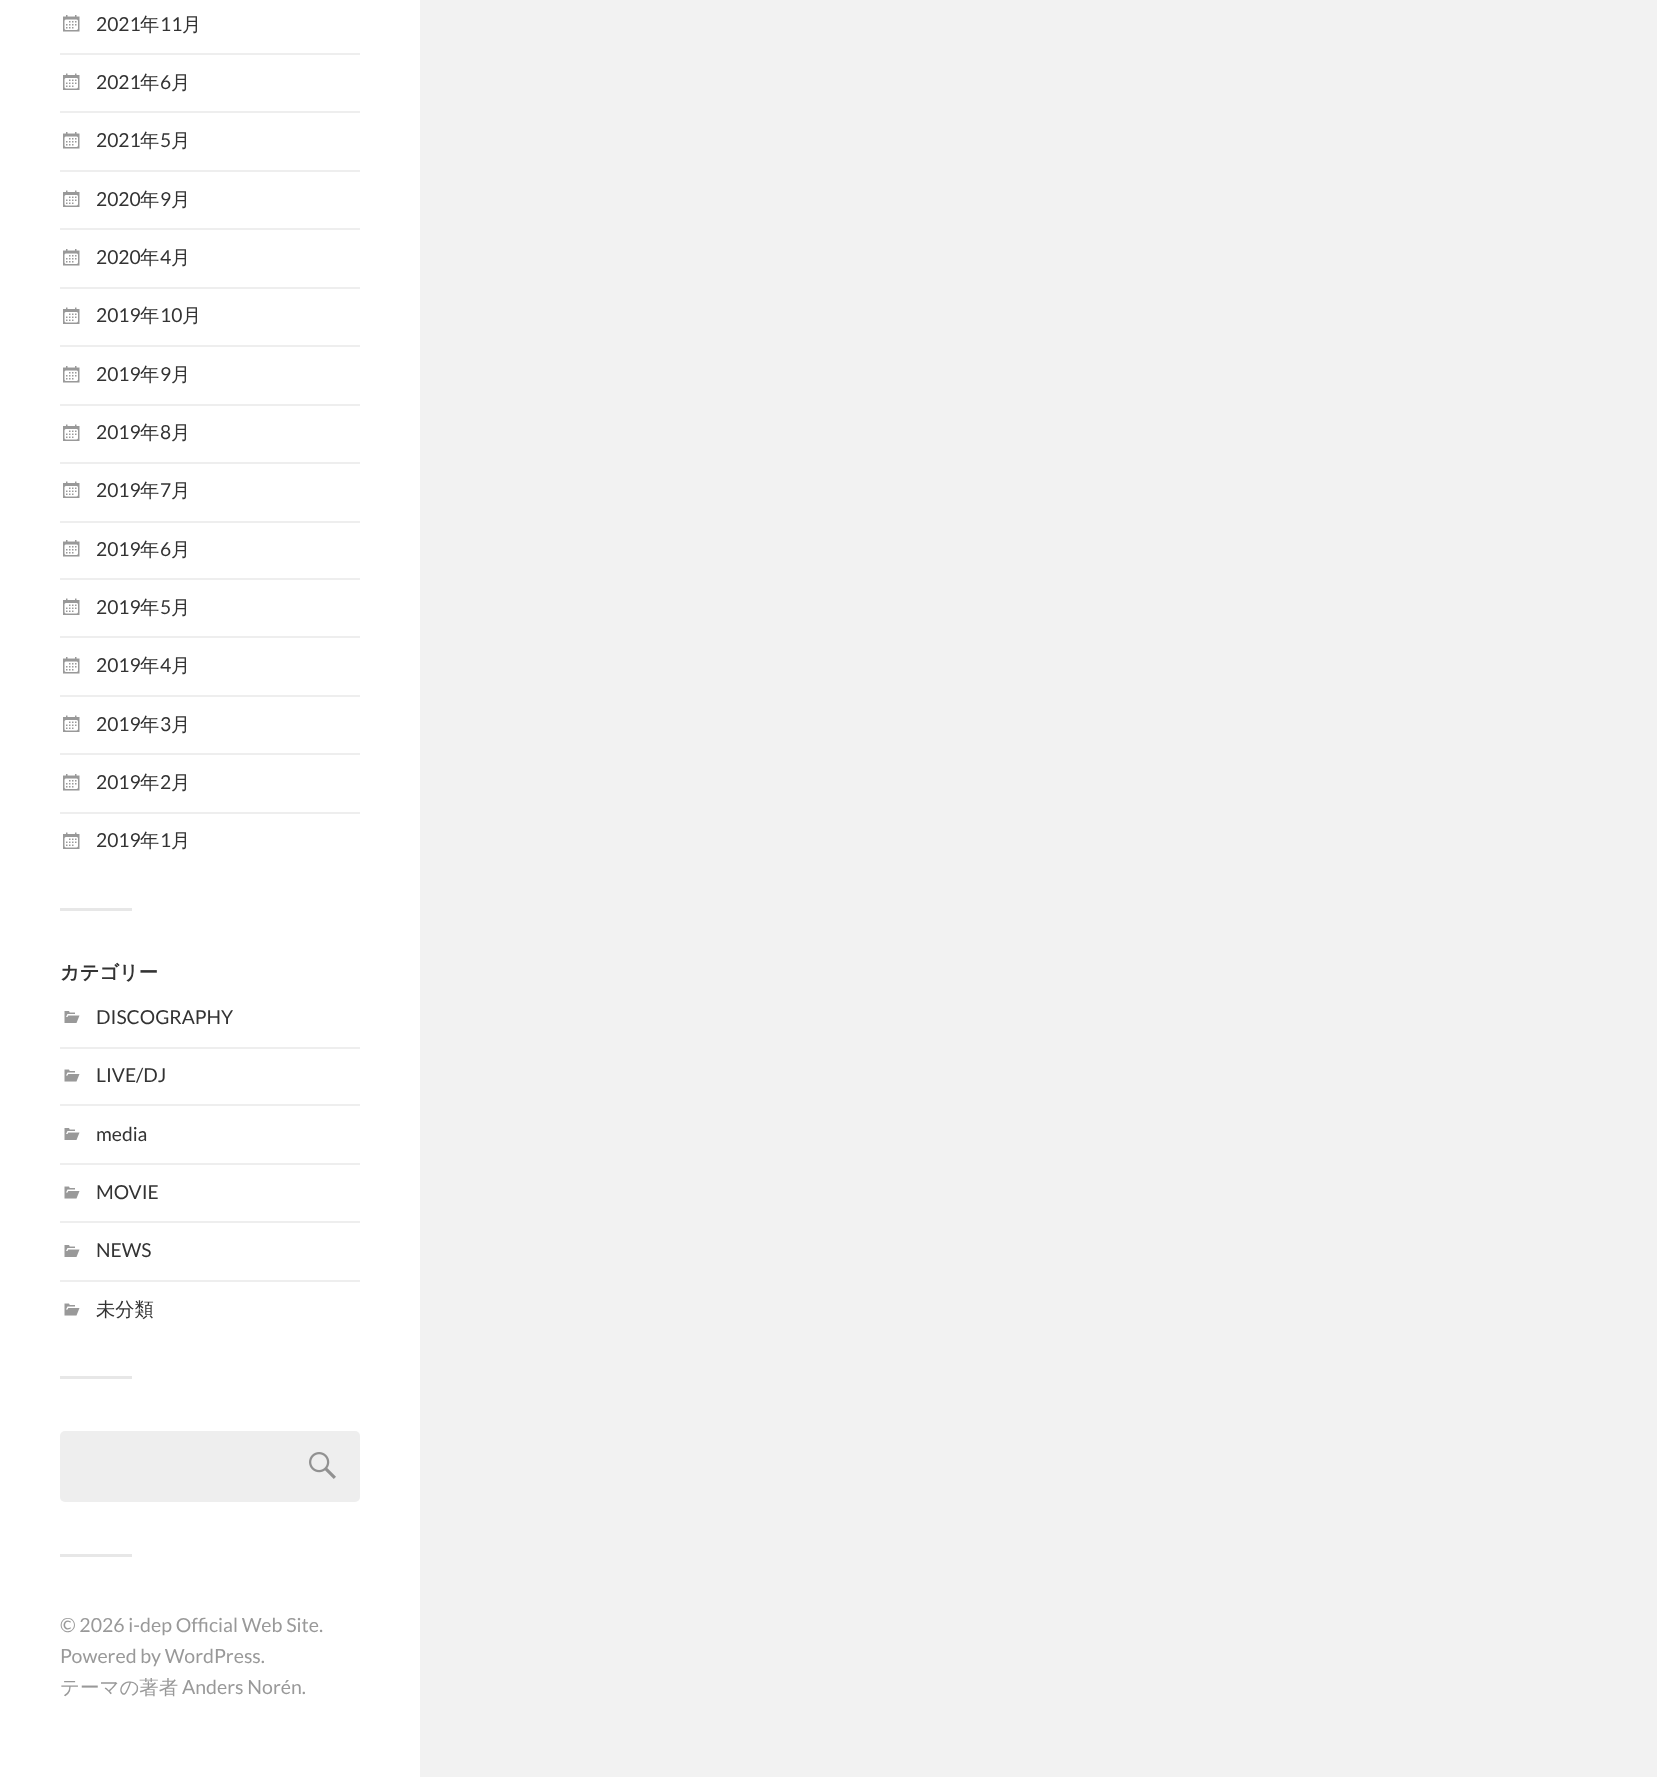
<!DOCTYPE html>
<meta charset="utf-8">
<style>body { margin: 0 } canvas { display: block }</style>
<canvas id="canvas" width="1657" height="1777"></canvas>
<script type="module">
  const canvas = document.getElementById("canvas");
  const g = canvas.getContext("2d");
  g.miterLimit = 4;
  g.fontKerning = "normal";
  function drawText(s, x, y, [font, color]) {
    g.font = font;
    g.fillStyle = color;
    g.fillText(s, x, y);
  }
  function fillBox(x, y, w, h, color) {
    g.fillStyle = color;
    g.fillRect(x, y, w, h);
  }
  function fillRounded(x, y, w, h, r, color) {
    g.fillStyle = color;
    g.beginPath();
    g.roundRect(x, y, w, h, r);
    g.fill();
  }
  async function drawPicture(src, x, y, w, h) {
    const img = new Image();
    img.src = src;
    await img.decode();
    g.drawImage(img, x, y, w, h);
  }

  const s1 = ["19.25px Lato", "#333333"];
  const s2 = ["500 19.25px WenQuanYi Zen Hei", "#333333"];
  const s3 = ["bold 19.25px WenQuanYi Zen Hei", "#333333"];
  const s4 = ["19.5px Lato", "#999999"];
  const s5 = ["500 19.5px WenQuanYi Zen Hei", "#999999"];

  fillBox(0, 0, 1657, 1777, "#F2F2F2");
  fillBox(0, 0, 420, 1777, "#FFFFFF");
  fillBox(60, 53, 300, 2, "#EEEEEE");
  await drawPicture("pic1.png", 63, 15, 17, 17);
  drawText("2021", 96, 31, s1);
  drawText("年", 140, 31, s2);
  drawText("11", 160, 31, s1);
  drawText("月", 182, 31, s2);
  fillBox(60, 111, 300, 2, "#EEEEEE");
  await drawPicture("pic2.png", 63, 73, 17, 17);
  drawText("2021", 96, 89, s1);
  drawText("年", 140, 89, s2);
  drawText("6", 160, 89, s1);
  drawText("月", 171, 89, s2);
  fillBox(60, 170, 300, 2, "#EEEEEE");
  await drawPicture("pic1.png", 63, 132, 17, 17);
  drawText("2021", 96, 147, s1);
  drawText("年", 140, 147, s2);
  drawText("5", 160, 147, s1);
  drawText("月", 171, 147, s2);
  fillBox(60, 228, 300, 2, "#EEEEEE");
  await drawPicture("pic2.png", 63, 190, 17, 17);
  drawText("2020", 96, 206, s1);
  drawText("年", 140, 206, s2);
  drawText("9", 160, 206, s1);
  drawText("月", 171, 206, s2);
  fillBox(60, 287, 300, 2, "#EEEEEE");
  await drawPicture("pic1.png", 63, 249, 17, 17);
  drawText("2020", 96, 264, s1);
  drawText("年", 140, 264, s2);
  drawText("4", 160, 264, s1);
  drawText("月", 171, 264, s2);
  fillBox(60, 345, 300, 2, "#EEEEEE");
  await drawPicture("pic2.png", 63, 307, 17, 17);
  drawText("2019", 96, 322, s1);
  drawText("年", 140, 322, s2);
  drawText("10", 160, 322, s1);
  drawText("月", 182, 322, s2);
  fillBox(60, 404, 300, 2, "#EEEEEE");
  await drawPicture("pic1.png", 63, 366, 17, 17);
  drawText("2019", 96, 381, s1);
  drawText("年", 140, 381, s2);
  drawText("9", 160, 381, s1);
  drawText("月", 171, 381, s2);
  fillBox(60, 462, 300, 2, "#EEEEEE");
  await drawPicture("pic2.png", 63, 424, 17, 17);
  drawText("2019", 96, 439, s1);
  drawText("年", 140, 439, s2);
  drawText("8", 160, 439, s1);
  drawText("月", 171, 439, s2);
  fillBox(60, 521, 300, 2, "#EEEEEE");
  await drawPicture("pic2.png", 63, 481, 17, 17);
  drawText("2019", 96, 497, s1);
  drawText("年", 140, 497, s2);
  drawText("7", 160, 497, s1);
  drawText("月", 171, 497, s2);
  fillBox(60, 578, 300, 2, "#EEEEEE");
  await drawPicture("pic1.png", 63, 540, 17, 17);
  drawText("2019", 96, 556, s1);
  drawText("年", 140, 556, s2);
  drawText("6", 160, 556, s1);
  drawText("月", 171, 556, s2);
  fillBox(60, 636, 300, 2, "#EEEEEE");
  await drawPicture("pic2.png", 63, 598, 17, 17);
  drawText("2019", 96, 614, s1);
  drawText("年", 140, 614, s2);
  drawText("5", 160, 614, s1);
  drawText("月", 171, 614, s2);
  fillBox(60, 695, 300, 2, "#EEEEEE");
  await drawPicture("pic1.png", 63, 657, 17, 17);
  drawText("2019", 96, 672, s1);
  drawText("年", 140, 672, s2);
  drawText("4", 160, 672, s1);
  drawText("月", 171, 672, s2);
  fillBox(60, 753, 300, 2, "#EEEEEE");
  await drawPicture("pic2.png", 63, 715, 17, 17);
  drawText("2019", 96, 731, s1);
  drawText("年", 140, 731, s2);
  drawText("3", 160, 731, s1);
  drawText("月", 171, 731, s2);
  fillBox(60, 812, 300, 2, "#EEEEEE");
  await drawPicture("pic1.png", 63, 774, 17, 17);
  drawText("2019", 96, 789, s1);
  drawText("年", 140, 789, s2);
  drawText("2", 160, 789, s1);
  drawText("月", 171, 789, s2);
  await drawPicture("pic2.png", 63, 832, 17, 17);
  drawText("2019", 96, 847, s1);
  drawText("年", 140, 847, s2);
  drawText("1", 160, 847, s1);
  drawText("月", 171, 847, s2);
  fillBox(60, 908, 72, 3, "#E7E7E7");
  drawText("カテゴリー", 60, 979, s3);
  fillBox(60, 1047, 300, 2, "#EEEEEE");
  await drawPicture("pic3.png", 64, 1011, 16, 12);
  drawText("DISCOGRAPHY", 96, 1024, s1);
  fillBox(60, 1104, 300, 2, "#EEEEEE");
  await drawPicture("pic4.png", 64, 1069, 16, 13);
  drawText("LIVE/DJ", 96, 1082, s1);
  fillBox(60, 1163, 300, 2, "#EEEEEE");
  await drawPicture("pic3.png", 64, 1128, 16, 12);
  drawText("media", 96, 1141, s1);
  fillBox(60, 1221, 300, 2, "#EEEEEE");
  await drawPicture("pic4.png", 64, 1186, 16, 13);
  drawText("MOVIE", 96, 1199, s1);
  fillBox(60, 1280, 300, 2, "#EEEEEE");
  await drawPicture("pic3.png", 64, 1245, 16, 12);
  drawText("NEWS", 96, 1257, s1);
  await drawPicture("pic4.png", 64, 1303, 16, 13);
  drawText("未分類", 96, 1316, s2);
  fillBox(60, 1376, 72, 3, "#E7E7E7");
  fillRounded(60, 1431, 300, 71, 5, "#EEEEEE");
  await drawPicture("pic5.png", 309, 1452, 27, 27);
  fillBox(60, 1554, 72, 3, "#E7E7E7");
  drawText("© 2026 i-dep Official Web Site.", 60, 1632, s4);
  drawText("Powered by WordPress.", 60, 1663, s4);
  drawText("テーマの著者", 60, 1694, s5);
  drawText("Anders Norén.", 182, 1694, s4);
</script>
